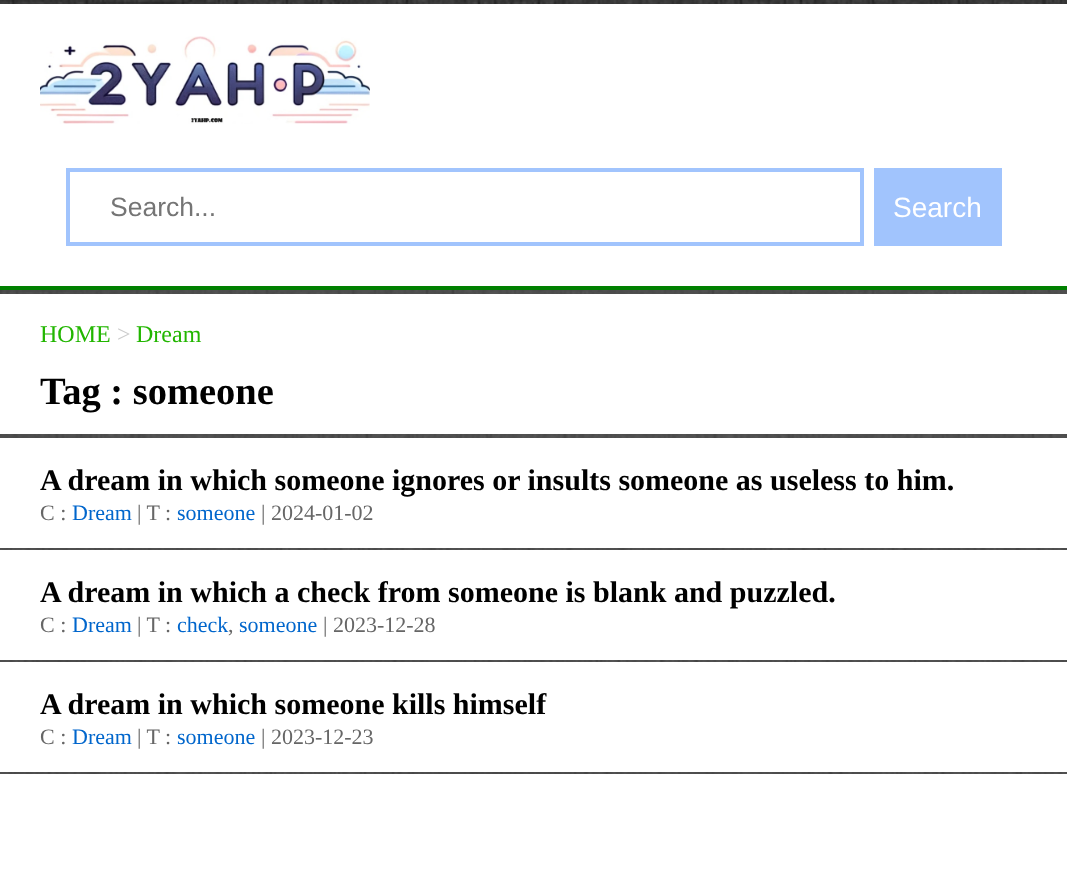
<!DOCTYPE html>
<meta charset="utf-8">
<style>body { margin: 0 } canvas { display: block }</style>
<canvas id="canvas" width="1067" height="876"></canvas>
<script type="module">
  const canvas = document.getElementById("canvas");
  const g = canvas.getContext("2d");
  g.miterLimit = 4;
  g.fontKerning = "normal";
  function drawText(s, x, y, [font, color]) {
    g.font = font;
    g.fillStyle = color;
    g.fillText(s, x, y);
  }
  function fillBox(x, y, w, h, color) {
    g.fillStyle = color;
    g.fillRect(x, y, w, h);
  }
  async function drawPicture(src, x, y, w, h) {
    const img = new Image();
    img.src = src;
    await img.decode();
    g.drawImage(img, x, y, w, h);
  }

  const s1 = ["26.5px Liberation Sans", "#757575"];
  const s2 = ["28px Liberation Sans", "#FFFFFF"];
  const s3 = ["24px Liberation Serif", "#22B600"];
  const s4 = ["24px Liberation Serif", "#CCCCCC"];
  const s5 = ["bold 38.5px Liberation Serif", "#000000"];
  const s6 = ["bold 30px Liberation Serif", "#000000"];
  const s7 = ["22px Liberation Serif", "#666666"];
  const s8 = ["22px Liberation Serif", "#0066CC"];

  fillBox(0, 0, 1067, 876, "#FFFFFF");
  await drawPicture("pic1.png", 0, 0, 1067, 774);
  fillBox(0, 4, 1067, 282, "#FFFFFF");
  fillBox(0, 286, 1067, 4, "#008000");
  await drawPicture("pic2.png", 40, 36, 330, 88);
  g.strokeStyle = "#A1C4FD";
  g.lineWidth = 4;
  g.strokeRect(68, 170, 794, 74);
  drawText("Search...", 110, 216, s1);
  fillBox(874, 168, 128, 78, "#A1C4FD");
  drawText("Search", 893, 217, s2);
  fillBox(0, 294, 1067, 140, "#FFFFFF");
  drawText("HOME", 40, 342, s3);
  drawText(">", 117, 342, s4);
  drawText("Dream", 136, 342, s3);
  drawText("Tag : someone", 40, 404, s5);
  fillBox(0, 438, 1067, 110, "#FFFFFF");
  drawText("A dream in which someone ignores or insults someone as useless to him.", 40, 490, s6);
  drawText("C :", 40, 520, s7);
  drawText("Dream", 72, 520, s8);
  drawText("| T :", 137, 520, s7);
  drawText("someone", 177, 520, s8);
  drawText("| 2024-01-02", 261, 520, s7);
  fillBox(0, 550, 1067, 110, "#FFFFFF");
  drawText("A dream in which a check from someone is blank and puzzled.", 40, 602, s6);
  drawText("C :", 40, 632, s7);
  drawText("Dream", 72, 632, s8);
  drawText("| T :", 137, 632, s7);
  drawText("check", 177, 632, s8);
  drawText(",", 228, 632, s7);
  drawText("someone", 239, 632, s8);
  drawText("| 2023-12-28", 323, 632, s7);
  fillBox(0, 662, 1067, 110, "#FFFFFF");
  drawText("A dream in which someone kills himself", 40, 714, s6);
  drawText("C :", 40, 744, s7);
  drawText("Dream", 72, 744, s8);
  drawText("| T :", 137, 744, s7);
  drawText("someone", 177, 744, s8);
  drawText("| 2023-12-23", 261, 744, s7);
</script>
